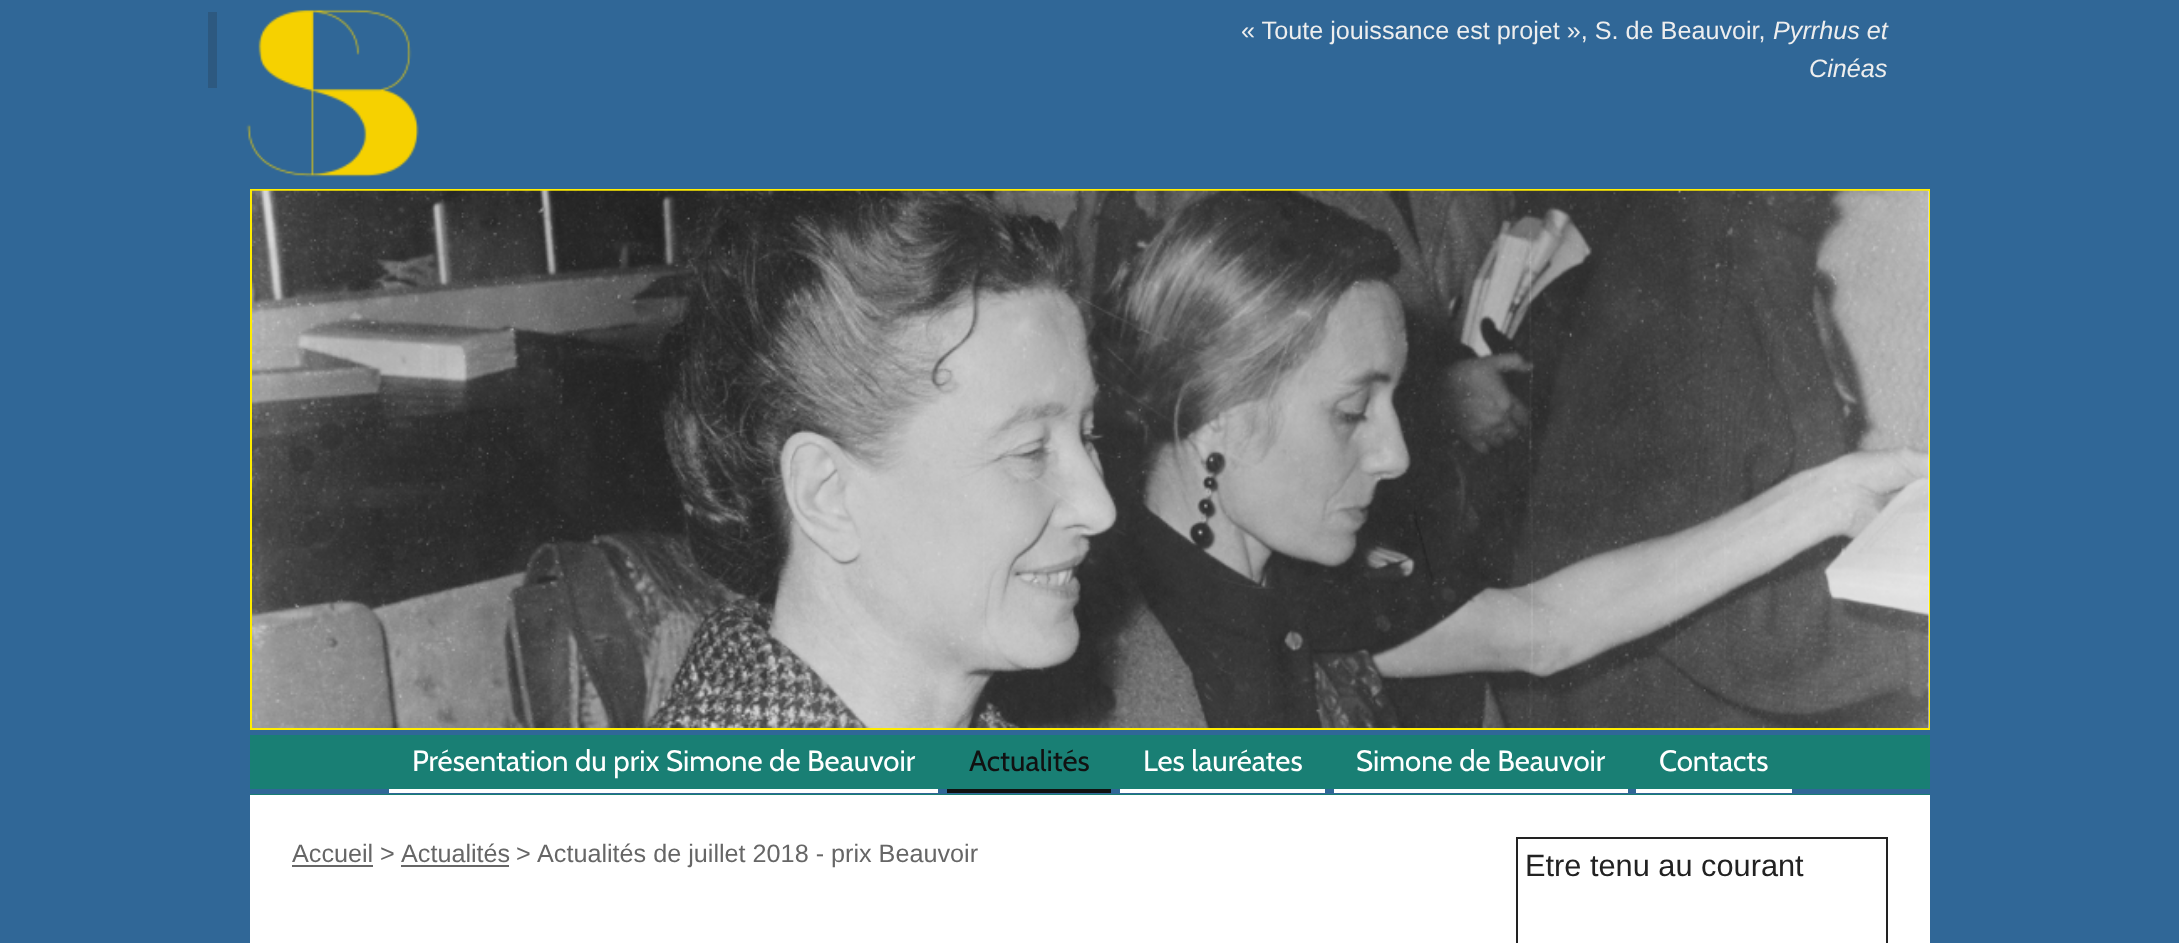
<!DOCTYPE html>
<meta charset="utf-8">
<style>body { margin: 0 } canvas { display: block }</style>
<canvas id="canvas" width="2179" height="943"></canvas>
<script type="module">
  const canvas = document.getElementById("canvas");
  const g = canvas.getContext("2d");
  g.miterLimit = 4;
  g.fontKerning = "normal";
  function drawText(s, x, y, [font, color]) {
    g.font = font;
    g.fillStyle = color;
    g.fillText(s, x, y);
  }
  function fillBox(x, y, w, h, color) {
    g.fillStyle = color;
    g.fillRect(x, y, w, h);
  }
  async function drawPicture(src, x, y, w, h) {
    const img = new Image();
    img.src = src;
    await img.decode();
    g.drawImage(img, x, y, w, h);
  }

  const s1 = ["25.2px Liberation Sans", "#EEEEEE"];
  const s2 = ["italic 25.2px Liberation Sans", "#EEEEEE"];
  const s3 = ["29.4px Cabin", "#FFFFFF"];
  const s4 = ["29.4px Cabin", "#111111"];
  const s5 = ["25.2px Liberation Sans", "#666666"];
  const s6 = ["30.75px Liberation Sans", "#222222"];

  fillBox(0, 0, 2179, 943, "#306797");
  fillBox(250, 795, 1680, 148, "#FFFFFF");
  await drawPicture("pic1.png", 246, 9, 173, 168);
  fillBox(208, 12, 9, 76, "#2D5980");
  drawText("« Toute jouissance est projet », S. de Beauvoir,", 1241, 39, s1);
  drawText("Pyrrhus et", 1773, 39, s2);
  drawText("Cinéas", 1809, 77, s2);
  g.strokeStyle = "#FFED00";
  g.lineWidth = 2;
  g.strokeRect(251, 190, 1678, 539);
  fillBox(1928, 191, 1, 537, "#EEEEEE");
  await drawPicture("pic2.png", 252, 190, 1677, 538);
  fillBox(250, 735, 1680, 60, "#197F74");
  fillBox(250, 789, 1680, 5, "#306797");
  fillBox(389, 789, 549, 4, "#FFFFFF");
  drawText("Présentation du prix Simone de Beauvoir", 412, 771, s3);
  fillBox(947, 789, 164, 4, "#111111");
  drawText("Actualités", 969, 771, s4);
  fillBox(1120, 789, 205, 4, "#FFFFFF");
  drawText("Les lauréates", 1143, 771, s3);
  fillBox(1334, 789, 294, 4, "#FFFFFF");
  drawText("Simone de Beauvoir", 1356, 771, s3);
  fillBox(1636, 789, 156, 4, "#FFFFFF");
  drawText("Contacts", 1659, 771, s3);
  drawText("Accueil", 292, 862, s5);
  fillBox(292, 865, 81, 2, "#666666");
  drawText(">", 380, 862, s5);
  drawText("Actualités", 401, 862, s5);
  fillBox(401, 865, 108, 2, "#666666");
  drawText(">", 516, 862, s5);
  drawText("Actualités de juillet 2018 - prix Beauvoir", 537, 862, s5);
  g.strokeStyle = "#222222";
  g.strokeRect(1517, 838, 370, 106);
  drawText("Etre tenu au courant", 1525, 876, s6);
</script>
